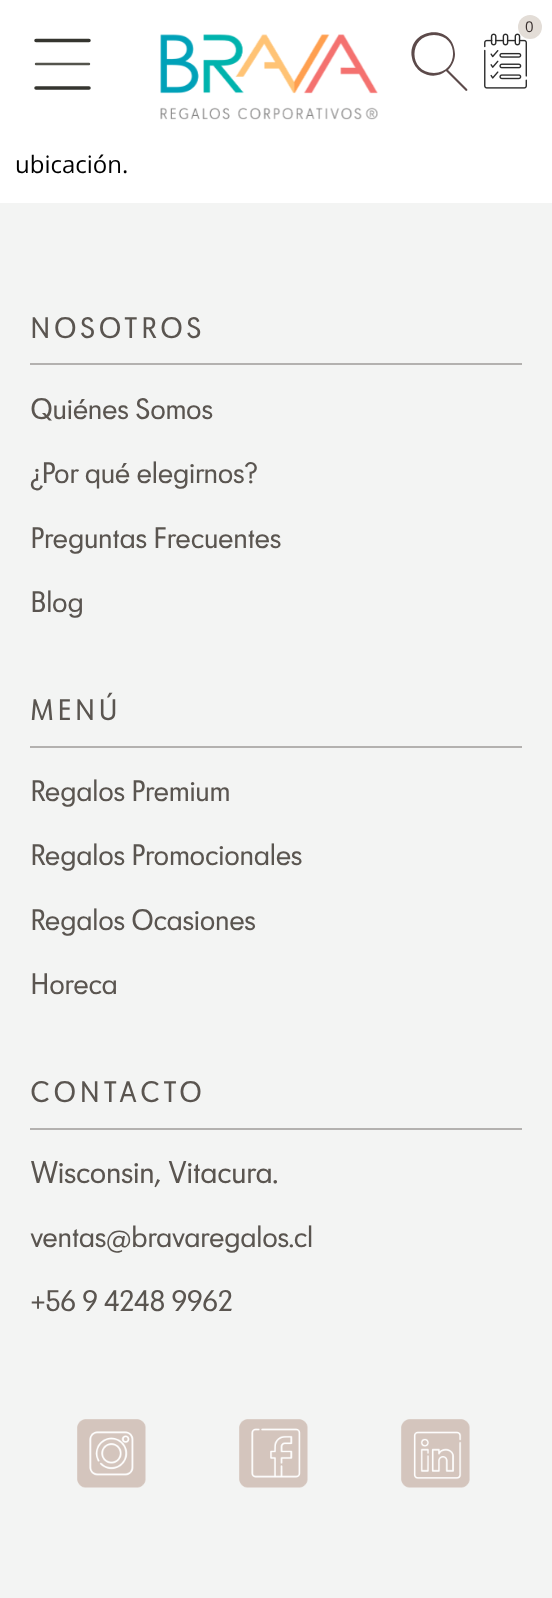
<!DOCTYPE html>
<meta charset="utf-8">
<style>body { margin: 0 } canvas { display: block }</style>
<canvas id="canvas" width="552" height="1598"></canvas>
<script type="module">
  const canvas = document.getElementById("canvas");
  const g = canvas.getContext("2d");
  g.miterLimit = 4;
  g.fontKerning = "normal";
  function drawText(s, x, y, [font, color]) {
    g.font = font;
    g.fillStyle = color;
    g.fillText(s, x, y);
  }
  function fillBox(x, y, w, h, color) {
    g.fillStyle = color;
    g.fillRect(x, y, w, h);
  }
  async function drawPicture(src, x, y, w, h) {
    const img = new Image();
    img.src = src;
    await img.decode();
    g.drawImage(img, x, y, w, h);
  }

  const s1 = ["15px Open Sans", "#392F2E"];
  const s2 = ["24px Open Sans", "#000000"];
  const s3 = ["27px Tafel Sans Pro", "#5A5550"];
  const s4 = ["28.5px Tafel Sans Pro", "#5A5550"];

  fillBox(0, 0, 552, 1598, "#FFFFFF");
  await drawPicture("pic1.png", 484, 33, 43, 56);
  g.fillStyle = "#E3DDD7";
  g.beginPath();
  g.arc(530, 27, 12, 0, Math.PI * 2);
  g.fill();
  drawText("0", 525, 32, s1);
  g.beginPath();
  g.moveTo(89, 88);
  g.lineTo(36, 88);
  g.moveTo(36, 40.5);
  g.lineTo(89, 40.5);
  g.strokeStyle = "#35352F";
  g.lineWidth = 3.5;
  g.lineCap = "round";
  g.stroke();
  g.beginPath();
  g.moveTo(36, 64);
  g.lineTo(89, 64);
  g.strokeStyle = "#54544D";
  g.lineWidth = 2.4;
  g.stroke();
  await drawPicture("pic2.png", 160, 34, 218, 86);
  g.fillStyle = "#5C4A4A";
  g.beginPath();
  g.moveTo(467, 89);
  g.lineTo(448, 70);
  g.bezierCurveTo(452, 66, 455, 60, 455, 54);
  g.bezierCurveTo(454, 21, 406, 28, 412, 58);
  g.bezierCurveTo(413, 64, 417, 69, 421, 72);
  g.bezierCurveTo(429, 77, 439, 77, 446, 71);
  g.lineTo(466, 91);
  g.bezierCurveTo(467, 91, 468, 90, 467, 89);
  g.closePath();
  g.moveTo(434, 73);
  g.bezierCurveTo(408, 73, 408, 35, 434, 35);
  g.bezierCurveTo(460, 35, 459, 73, 434, 73);
  g.closePath();
  g.fill();
  drawText("ubicación.", 15, 173, s2);
  fillBox(0, 203, 552, 1395, "#F3F4F3");
  g.letterSpacing = "3.25px";
  drawText("NOSOTROS", 30, 338, s3);
  fillBox(30, 363, 492, 2, "#B3B1AF");
  g.letterSpacing = "-0.75px";
  drawText("Quiénes Somos", 30, 419, s3);
  drawText("¿Por qué elegirnos?", 30, 483, s3);
  drawText("Preguntas Frecuentes", 30, 548, s3);
  drawText("Blog", 30, 612, s3);
  g.letterSpacing = "3.25px";
  drawText("MENÚ", 30, 720, s3);
  fillBox(30, 746, 492, 2, "#B3B1AF");
  g.letterSpacing = "-0.75px";
  drawText("Regalos Premium", 30, 801, s3);
  drawText("Regalos Promocionales", 30, 865, s3);
  drawText("Regalos Ocasiones", 30, 930, s3);
  drawText("Horeca", 30, 994, s3);
  g.letterSpacing = "3.25px";
  drawText("CONTACTO", 30, 1102, s3);
  fillBox(30, 1128, 492, 2, "#B3B1AF");
  g.letterSpacing = "-0.75px";
  drawText("Wisconsin, Vitacura.", 30, 1183, s4);
  drawText("ventas@bravaregalos.cl", 30, 1247, s3);
  drawText("+56 9 4248 9962", 30, 1311, s3);
  await drawPicture("pic3.png", 77, 1419, 69, 69);
  await drawPicture("pic4.png", 239, 1419, 69, 69);
  await drawPicture("pic5.png", 401, 1419, 69, 69);
</script>
